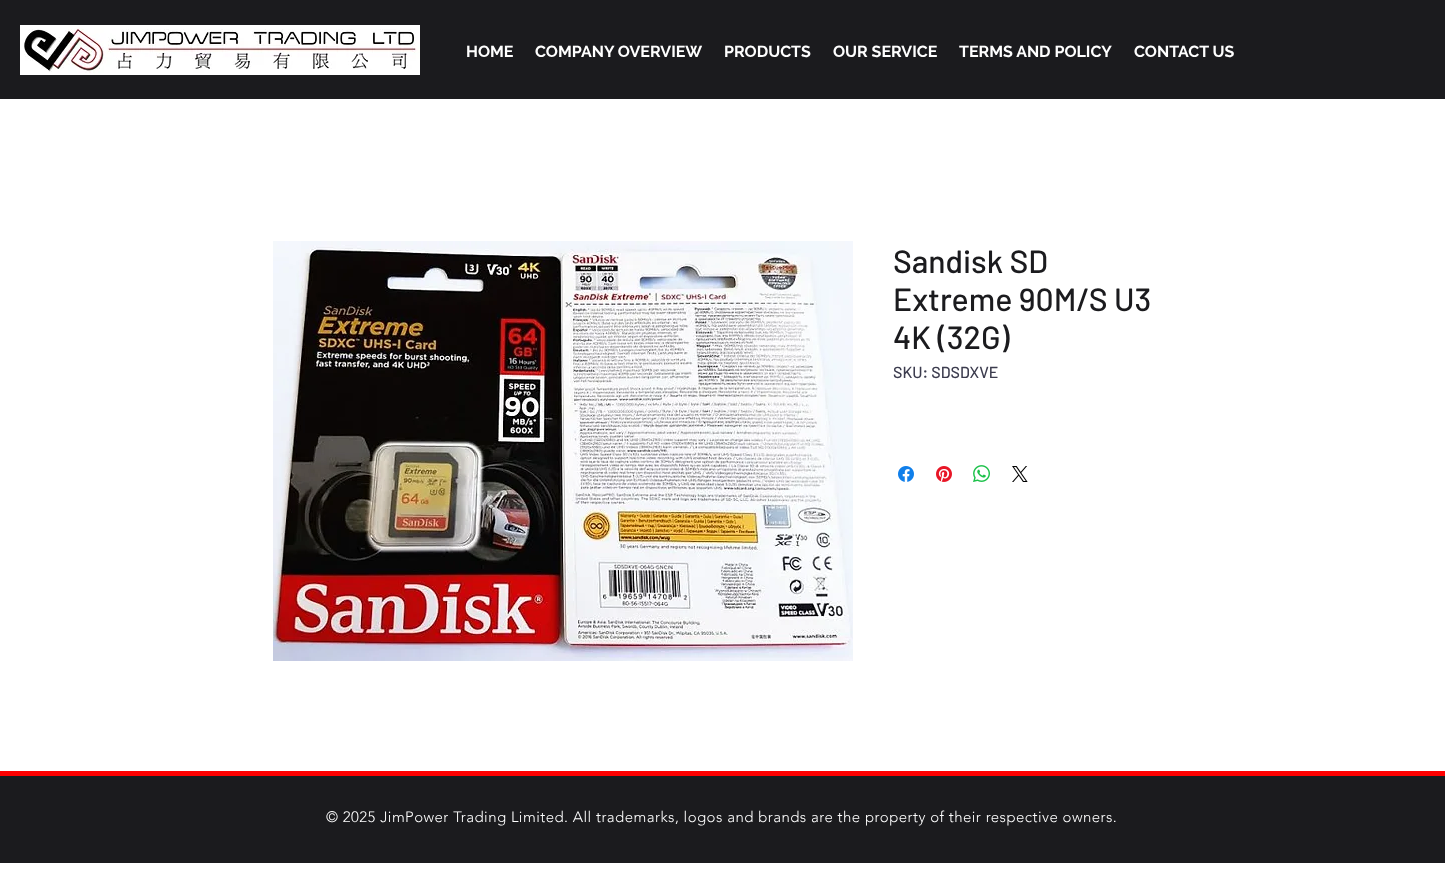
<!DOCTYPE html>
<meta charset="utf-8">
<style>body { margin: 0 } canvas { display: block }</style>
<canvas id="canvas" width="1445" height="877"></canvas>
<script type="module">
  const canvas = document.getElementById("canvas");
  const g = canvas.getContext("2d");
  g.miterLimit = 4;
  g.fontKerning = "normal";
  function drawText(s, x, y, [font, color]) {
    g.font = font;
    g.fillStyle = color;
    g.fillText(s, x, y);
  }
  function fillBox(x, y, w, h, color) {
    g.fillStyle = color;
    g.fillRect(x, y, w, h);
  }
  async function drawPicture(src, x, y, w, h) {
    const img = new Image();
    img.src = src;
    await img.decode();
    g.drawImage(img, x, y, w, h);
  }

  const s1 = ["bold 16px Raleway", "#FFFFFF"];
  const s2 = ["500 32px Barlow", "#1B1B1E"];
  const s3 = ["500 16px Barlow", "#3C3C4E"];
  const s4 = ["300 15px 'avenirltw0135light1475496'", "#FFFFFF"];

  fillBox(0, 0, 1445, 877, "#FFFFFF");
  fillBox(0, 0, 1445, 99, "#1B1B1E");
  await drawPicture("pic1.png", 20, 25, 400, 50);
  drawText("HOME", 466, 57, s1);
  drawText("COMPANY OVERVIEW", 535, 57, s1);
  drawText("PRODUCTS", 724, 57, s1);
  drawText("OUR SERVICE", 833, 57, s1);
  drawText("TERMS AND POLICY", 959, 57, s1);
  drawText("CONTACT US", 1134, 57, s1);
  await drawPicture("pic2.png", 273, 241, 580, 420);
  drawText("Sandisk SD", 893, 273, s2);
  drawText("Extreme 90M/S U3", 893, 311, s2);
  drawText("4K (32G)", 893, 349, s2);
  drawText("SKU: SDSDXVE", 893, 378, s3);
  await drawPicture("pic3.png", 898, 466, 16, 16);
  await drawPicture("pic4.png", 936, 466, 16, 16);
  await drawPicture("pic5.png", 973, 465, 17, 17);
  await drawPicture("pic6.png", 1012, 466, 16, 16);
  fillBox(0, 776, 1445, 87, "#1B1B1E");
  fillBox(0, 771, 1445, 5, "#FF0000");
  g.letterSpacing = "0.45px";
  drawText("© 2025 JimPower Trading Limited. All trademarks, logos and brands are the property of their respective owners.", 326, 822, s4);
</script>
